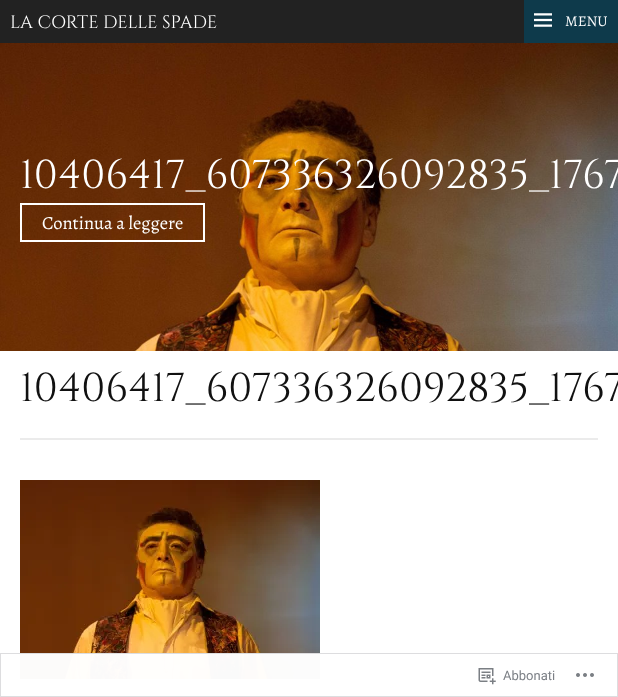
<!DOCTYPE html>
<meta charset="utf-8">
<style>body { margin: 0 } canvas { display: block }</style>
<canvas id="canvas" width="618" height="697"></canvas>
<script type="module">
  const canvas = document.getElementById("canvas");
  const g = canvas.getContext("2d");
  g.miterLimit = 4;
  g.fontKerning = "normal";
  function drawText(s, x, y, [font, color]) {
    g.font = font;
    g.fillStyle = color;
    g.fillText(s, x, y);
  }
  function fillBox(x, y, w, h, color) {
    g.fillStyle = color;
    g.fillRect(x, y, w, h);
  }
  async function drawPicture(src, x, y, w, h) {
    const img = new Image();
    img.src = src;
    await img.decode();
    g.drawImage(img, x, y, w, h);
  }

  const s1 = ["18px Cinzel", "#FFFFFF"];
  const s2 = ["15px Alegreya", "#FFFFFF"];
  const s3 = ["40.3px Cinzel", "#FFFFFF"];
  const s4 = ["18.5px Alegreya", "#FFFFFF"];
  const s5 = ["40.3px Cinzel", "#111111"];
  const s6 = ["13px Roboto", "#7B7F85"];

  fillBox(0, 0, 618, 697, "#FFFFFF");
  fillBox(0, 0, 524, 43, "#222222");
  drawText("LA CORTE DELLE SPADE", 10, 28, s1);
  fillBox(524, 0, 94, 43, "#0E3A4B");
  await drawPicture("pic1.png", 534, 13, 18, 14);
  drawText("MENU", 565, 26, s2);
  await drawPicture("pic2.png", 0, 43, 618, 308);
  drawText("10406417_607336326092835_1767", 20, 188, s3);
  g.strokeStyle = "#FFFFFF";
  g.lineWidth = 2;
  g.strokeRect(21, 204, 183, 37);
  drawText("Continua a leggere", 42, 229, s4);
  fillBox(20, 438, 578, 2, "#EBEBEB");
  drawText("10406417_607336326092835_1767", 20, 401, s5);
  await drawPicture("pic3.png", 20, 480, 300, 199);
  fillBox(20, 653, 300, 26, "rgba(255, 255, 255, 0.98)");
  g.strokeStyle = "rgba(220, 220, 222, 0.98)";
  g.lineWidth = 1;
  g.strokeRect(0.5, 653.5, 617, 43);
  await drawPicture("pic4.png", 478, 668, 18, 17);
  drawText("Abbonati", 503, 680, s6);
  await drawPicture("pic5.png", 576, 673, 18, 4);
</script>
